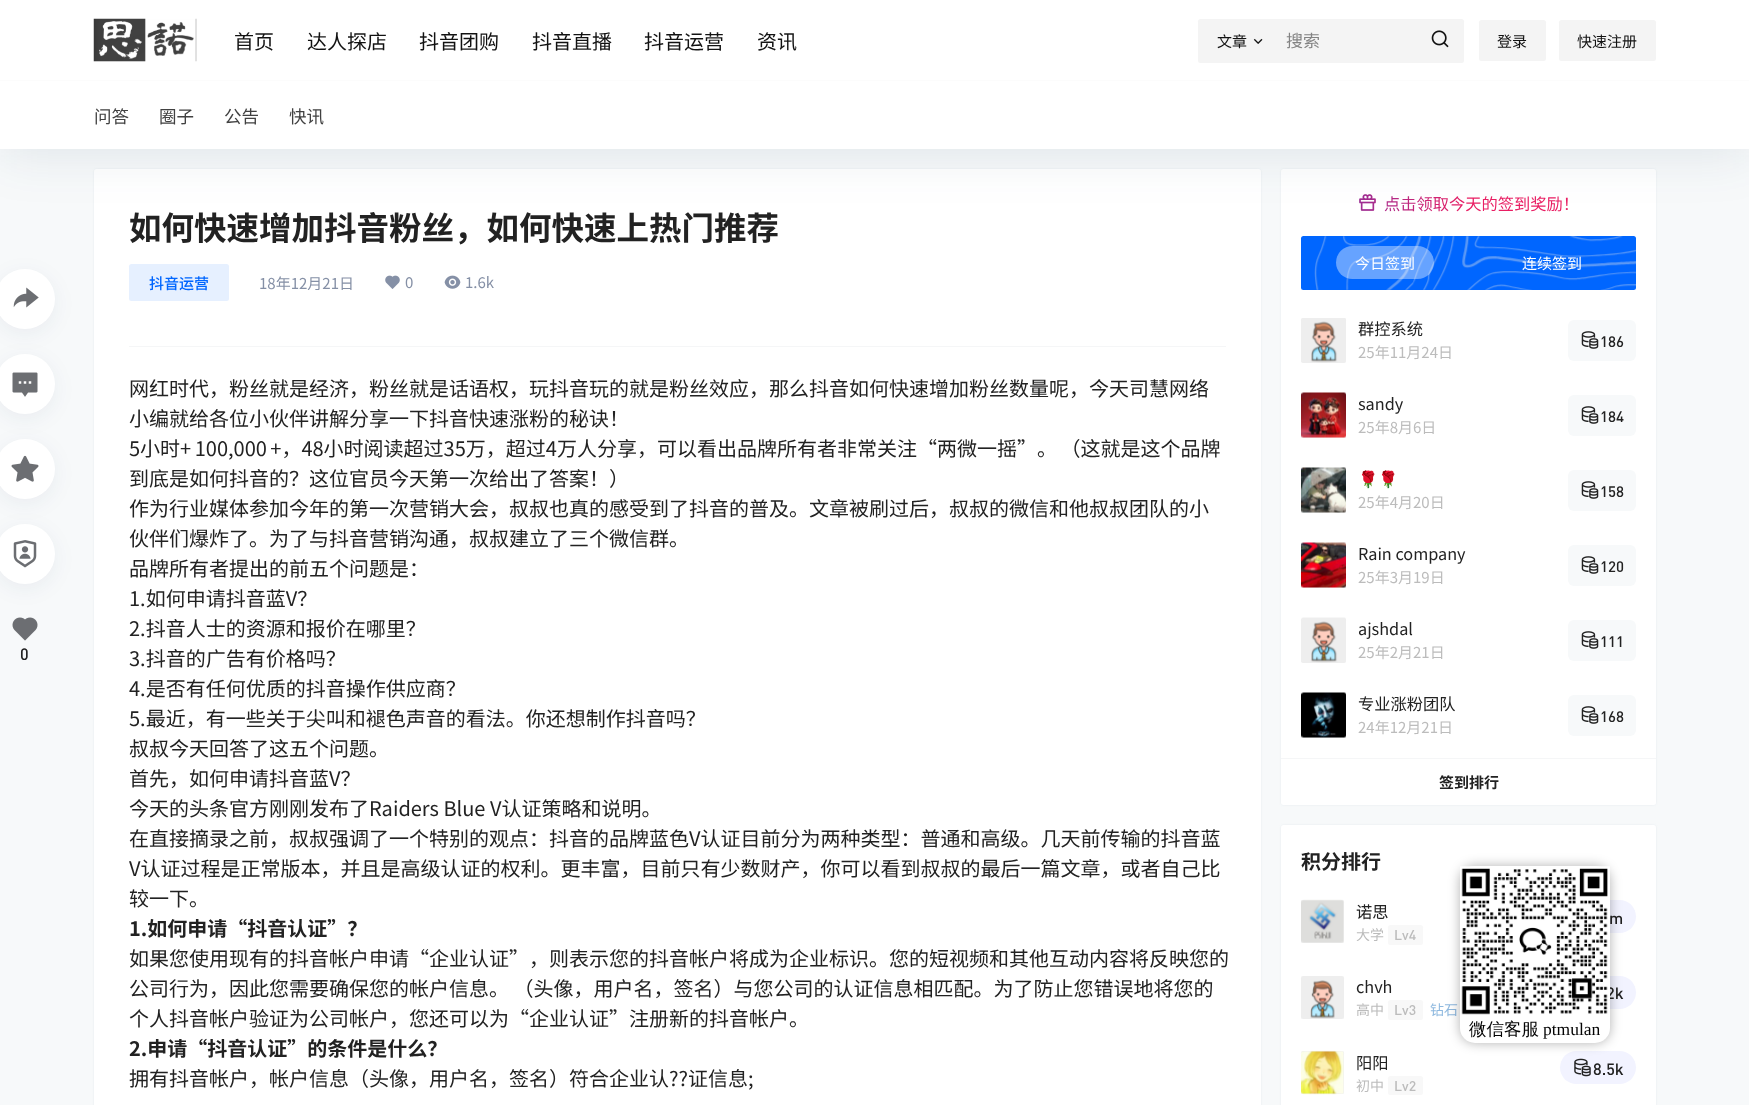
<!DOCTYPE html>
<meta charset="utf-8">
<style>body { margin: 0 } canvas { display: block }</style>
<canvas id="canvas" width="1749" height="1105"></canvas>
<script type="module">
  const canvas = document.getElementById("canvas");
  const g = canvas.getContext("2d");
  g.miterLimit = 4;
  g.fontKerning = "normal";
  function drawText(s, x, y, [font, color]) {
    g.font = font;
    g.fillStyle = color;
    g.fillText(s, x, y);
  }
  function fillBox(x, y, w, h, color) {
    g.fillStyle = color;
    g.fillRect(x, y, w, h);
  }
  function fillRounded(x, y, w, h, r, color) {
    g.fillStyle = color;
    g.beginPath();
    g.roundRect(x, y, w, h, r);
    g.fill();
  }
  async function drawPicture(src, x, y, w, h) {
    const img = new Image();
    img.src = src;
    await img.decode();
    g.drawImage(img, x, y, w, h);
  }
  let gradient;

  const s1 = ["20px Noto Sans CJK SC", "#121212"];
  const s2 = ["15px Noto Sans CJK SC", "#121212"];
  const s3 = ["17px Noto Sans CJK SC", "#838383"];
  const s4 = ["17.5px Noto Sans CJK SC", "#414141"];
  const s5 = ["bold 32.5px Noto Sans CJK SC", "#222222"];
  const s6 = ["500 15px Noto Sans CJK SC", "#0066FF"];
  const s7 = ["15px Noto Sans CJK SC", "#8590A6"];
  const s8 = ["500 16.25px DIN", "#222222"];
  const s9 = ["20px Noto Sans CJK SC", "#222222"];
  const s10 = ["bold 20px Noto Sans CJK SC", "#222222"];
  const s11 = ["15px Noto Sans CJK SC", "#FFFFFF"];
  const s12 = ["16.25px Noto Sans CJK SC", "#222222"];
  const s13 = ["15px Noto Sans CJK SC", "#BCBCBC"];
  const s14 = ["500 15px DIN", "#222222"];
  const s15 = ["16.25px Noto Color Emoji", "#222222"];
  const s16 = ["bold 15px Noto Sans CJK SC", "#222222"];
  const s17 = ["14px Noto Sans CJK SC", "#BCBCBC"];
  const s18 = ["500 14px DIN", "#BCBCBC"];
  const s19 = ["14px Noto Sans CJK SC", "#8FB9DF"];
  const s20 = ["500 17.5px WenQuanYi Zen Hei", "#030303"];
  const s21 = ["17.5px Liberation Serif", "#030303"];

  fillBox(0, 0, 1749, 1105, "#F7F9FA");
  g.fillStyle = "rgba(98, 124, 153, 0.1)";
  g.filter = "blur(1px)";
  g.beginPath();
  g.roundRect(94, 169, 1167, 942, 2.5);
  g.fill();
  g.filter = "none";
  fillRounded(94, 169, 1167, 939, 2.5, "#FFFFFF");
  g.fillStyle = "rgba(98, 124, 153, 0.1)";
  g.filter = "blur(1px)";
  g.beginPath();
  g.roundRect(1281, 169, 375, 636, 2.5);
  g.fill();
  g.filter = "none";
  fillRounded(1281, 169, 375, 636, 2.5, "#FFFFFF");
  await drawPicture("pic11.png", 1359, 194, 17, 17);
  g.fillStyle = "rgba(17, 58, 93, 0.1)";
  g.filter = "blur(25px)";
  g.beginPath();
  g.rect(0, 6, 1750, 149);
  g.fill();
  g.filter = "none";
  fillBox(0, 0, 1749, 80, "#FFFFFF");
  await drawPicture("pic1.png", 93, 18, 104, 44);
  drawText("首页", 234, 49, s1);
  drawText("达人探店", 307, 49, s1);
  drawText("抖音团购", 419, 49, s1);
  drawText("抖音直播", 532, 49, s1);
  drawText("抖音运营", 644, 49, s1);
  drawText("资讯", 757, 49, s1);
  fillRounded(1198, 19, 266, 44, 2.5, "#F4F4F4");
  drawText("文章", 1217, 47, s2);
  await drawPicture("pic2.png", 1253, 38, 10, 6);
  drawText("搜索", 1286, 47, s3);
  await drawPicture("pic3.png", 1431, 30, 18, 18);
  fillRounded(1479, 20, 67, 41, 2.5, "#F4F4F4");
  drawText("登录", 1497, 47, s2);
  fillRounded(1559, 20, 97, 41, 2.5, "#F4F4F4");
  drawText("快速注册", 1577, 47, s2);
  fillBox(0, 81, 1749, 68, "#FFFFFF");
  fillBox(0, 80, 1749, 1, "#FCFCFC");
  drawText("问答", 94, 123, s4);
  drawText("圈子", 159, 123, s4);
  drawText("公告", 224, 123, s4);
  drawText("快讯", 289, 123, s4);
  fillBox(129, 346, 1097, 1, "#F5F6F7");
  drawText("如何快速增加抖音粉丝，如何快速上热门推荐", 129, 240, s5);
  fillRounded(129, 264, 100, 37, 2.5, "#E6F0FF");
  drawText("抖音运营", 149, 289, s6);
  g.save();
  g.beginPath();
  g.rect(259, 275, 95, 15);
  g.clip();
  drawText("18年12月21日", 259, 289, s7);
  g.restore();
  await drawPicture("pic4.png", 385, 275, 15, 14);
  drawText("0", 405, 288, s7);
  await drawPicture("pic5.png", 444, 275, 17, 14);
  drawText("1.6k", 465, 288, s7);
  g.fillStyle = "rgba(13, 39, 91, 0.06)";
  g.filter = "blur(10px)";
  g.beginPath();
  g.roundRect(-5, 274, 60, 60, 30);
  g.fill();
  g.filter = "none";
  g.fillStyle = "#FFFFFF";
  g.beginPath();
  g.arc(25, 299, 30, 0, Math.PI * 2);
  g.fill();
  await drawPicture("pic6.png", 13, 287, 26, 21);
  g.fillStyle = "rgba(13, 39, 91, 0.06)";
  g.filter = "blur(10px)";
  g.beginPath();
  g.roundRect(-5, 359, 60, 60, 30);
  g.fill();
  g.filter = "none";
  g.fillStyle = "#FFFFFF";
  g.beginPath();
  g.arc(25, 384, 30, 0, Math.PI * 2);
  g.fill();
  await drawPicture("pic7.png", 12, 372, 26, 25);
  g.fillStyle = "rgba(13, 39, 91, 0.06)";
  g.filter = "blur(10px)";
  g.beginPath();
  g.roundRect(-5, 444, 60, 60, 30);
  g.fill();
  g.filter = "none";
  g.fillStyle = "#FFFFFF";
  g.beginPath();
  g.arc(25, 469, 30, 0, Math.PI * 2);
  g.fill();
  await drawPicture("pic8.png", 11, 455, 28, 27);
  await drawPicture("pic10.png", 12, 617, 26, 24);
  g.fillStyle = "rgba(13, 39, 91, 0.06)";
  g.filter = "blur(10px)";
  g.beginPath();
  g.roundRect(-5, 529, 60, 60, 30);
  g.fill();
  g.filter = "none";
  g.fillStyle = "#FFFFFF";
  g.beginPath();
  g.arc(25, 554, 30, 0, Math.PI * 2);
  g.fill();
  await drawPicture("pic9.png", 13, 540, 24, 28);
  drawText("0", 20, 660, s8);
  drawText("网红时代，粉丝就是经济，粉丝就是话语权，玩抖音玩的就是粉丝效应，那么抖音如何快速增加粉丝数量呢，今天司慧网络", 129, 396, s9);
  drawText("小编就给各位小伙伴讲解分享一下抖音快速涨粉的秘诀！", 129, 426, s9);
  g.wordSpacing = "-1px";
  drawText("5小时+ 100,000 +，48小时阅读超过35万，超过4万人分享，可以看出品牌所有者非常关注“两微一摇”。 （这就是这个品牌", 129, 456, s9);
  g.wordSpacing = "0px";
  drawText("到底是如何抖音的？这位官员今天第一次给出了答案！）", 129, 486, s9);
  drawText("作为行业媒体参加今年的第一次营销大会，叔叔也真的感受到了抖音的普及。文章被刷过后，叔叔的微信和他叔叔团队的小", 129, 516, s9);
  drawText("伙伴们爆炸了。为了与抖音营销沟通，叔叔建立了三个微信群。", 129, 546, s9);
  drawText("品牌所有者提出的前五个问题是：", 129, 576, s9);
  drawText("1.如何申请抖音蓝V？", 129, 606, s9);
  drawText("2.抖音人士的资源和报价在哪里？", 129, 636, s9);
  drawText("3.抖音的广告有价格吗？", 129, 666, s9);
  drawText("4.是否有任何优质的抖音操作供应商？", 129, 696, s9);
  drawText("5.最近，有一些关于尖叫和褪色声音的看法。你还想制作抖音吗？", 129, 726, s9);
  drawText("叔叔今天回答了这五个问题。", 129, 756, s9);
  drawText("首先，如何申请抖音蓝V？", 129, 786, s9);
  drawText("今天的头条官方刚刚发布了Raiders Blue V认证策略和说明。", 129, 816, s9);
  drawText("在直接摘录之前，叔叔强调了一个特别的观点：抖音的品牌蓝色V认证目前分为两种类型：普通和高级。几天前传输的抖音蓝", 129, 846, s9);
  drawText("V认证过程是正常版本，并且是高级认证的权利。更丰富，目前只有少数财产，你可以看到叔叔的最后一篇文章，或者自己比", 129, 876, s9);
  drawText("较一下。", 129, 906, s9);
  drawText("1.如何申请“抖音认证”？", 129, 936, s10);
  drawText("如果您使用现有的抖音帐户申请“企业认证”，则表示您的抖音帐户将成为企业标识。您的短视频和其他互动内容将反映您的", 129, 966, s9);
  drawText("公司行为，因此您需要确保您的帐户信息。 （头像，用户名，签名）与您公司的认证信息相匹配。为了防止您错误地将您的", 129, 996, s9);
  drawText("个人抖音帐户验证为公司帐户，您还可以为“企业认证”注册新的抖音帐户。", 129, 1026, s9);
  drawText("2.申请“抖音认证”的条件是什么？", 129, 1056, s10);
  drawText("拥有抖音帐户，帐户信息（头像，用户名，签名）符合企业认??证信息;", 129, 1086, s9);
  g.font = "16.25px Noto Sans CJK SC";
  gradient = g.createLinearGradient(1281, 193, 1656, 193);
  gradient.addColorStop(0, "#673AB7");
  gradient.addColorStop(0.5, "#E91E63");
  g.fillStyle = gradient;
  g.fillText("点击领取今天的签到奖励！", 1384, 210);
  fillRounded(1301, 236, 335, 54, 2.5, "#0066FF");
  await drawPicture("pic12.png", 1314, 236, 322, 54);
  fillRounded(1336, 246, 98, 33, 16.5, "rgba(255, 255, 255, 0.4)");
  drawText("今日签到", 1355, 269, s11);
  drawText("连续签到", 1522, 269, s11);
  fillRounded(1301, 318, 45, 45, 2.5, "#EEEEEE");
  await drawPicture("pic13.png", 1301, 318, 45, 45);
  drawText("群控系统", 1358, 335, s12);
  drawText("25年11月24日", 1358, 358, s13);
  fillRounded(1568, 320, 68, 41, 6, "#F7F9FA");
  await drawPicture("pic14.png", 1581, 331, 18, 18);
  drawText("186", 1600, 347, s14);
  fillRounded(1301, 393, 45, 45, 2.5, "#EEEEEE");
  await drawPicture("pic15.png", 1301, 392, 45, 46);
  drawText("sandy", 1358, 410, s12);
  drawText("25年8月6日", 1358, 433, s13);
  fillRounded(1568, 395, 68, 41, 6, "#F7F9FA");
  await drawPicture("pic14.png", 1581, 406, 18, 18);
  drawText("184", 1600, 422, s14);
  fillRounded(1301, 468, 45, 45, 2.5, "#EEEEEE");
  await drawPicture("pic16.png", 1301, 467, 45, 46);
  g.save();
  g.beginPath();
  g.rect(1358, 468, 86, 22);
  g.clip();
  drawText("🌹🌹", 1358, 485, s15);
  g.restore();
  drawText("25年4月20日", 1358, 508, s13);
  fillRounded(1568, 470, 68, 41, 6, "#F7F9FA");
  await drawPicture("pic14.png", 1581, 481, 18, 18);
  drawText("158", 1600, 497, s14);
  fillRounded(1301, 543, 45, 45, 2.5, "#EEEEEE");
  await drawPicture("pic17.png", 1301, 542, 45, 46);
  drawText("Rain company", 1358, 560, s12);
  drawText("25年3月19日", 1358, 583, s13);
  fillRounded(1568, 545, 68, 41, 6, "#F7F9FA");
  await drawPicture("pic14.png", 1581, 556, 18, 18);
  drawText("120", 1600, 572, s14);
  fillRounded(1301, 618, 45, 45, 2.5, "#EEEEEE");
  await drawPicture("pic18.png", 1301, 617, 45, 46);
  drawText("ajshdal", 1358, 635, s12);
  drawText("25年2月21日", 1358, 658, s13);
  fillRounded(1568, 620, 68, 41, 6, "#F7F9FA");
  await drawPicture("pic14.png", 1581, 631, 18, 18);
  drawText("111", 1600, 647, s14);
  fillRounded(1301, 693, 45, 45, 2.5, "#EEEEEE");
  await drawPicture("pic19.png", 1301, 692, 45, 46);
  drawText("专业涨粉团队", 1358, 710, s12);
  drawText("24年12月21日", 1358, 733, s13);
  fillRounded(1568, 695, 68, 41, 6, "#F7F9FA");
  await drawPicture("pic14.png", 1581, 706, 18, 18);
  drawText("168", 1600, 722, s14);
  fillBox(1281, 758, 375, 1, "#F5F6F7");
  drawText("签到排行", 1439, 788, s16);
  g.fillStyle = "rgba(98, 124, 153, 0.1)";
  g.filter = "blur(1px)";
  g.beginPath();
  g.roundRect(1281, 825, 375, 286, 2.5);
  g.fill();
  g.filter = "none";
  fillRounded(1281, 825, 375, 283, 2.5, "#FFFFFF");
  drawText("积分排行", 1301, 869, s10);
  fillBox(1301, 900, 43, 43, "#F9F9F9");
  fillRounded(1301, 900, 43, 43, 2.5, "#EEEEEE");
  await drawPicture("pic20.png", 1301, 899, 43, 44);
  drawText("诺思", 1356, 918, s12);
  drawText("大学", 1356, 940, s17);
  fillRounded(1388, 925, 35, 20, 2.5, "#F8F8F8");
  drawText("Lv4", 1394, 940, s18);
  fillRounded(1569, 900, 67, 33, 16.5, "#F2F3FF");
  drawText("m", 1609, 924, s8);
  fillBox(1301, 976, 43, 43, "#F9F9F9");
  fillRounded(1301, 976, 43, 43, 2.5, "#EEEEEE");
  await drawPicture("pic21.png", 1310, 980, 25, 39);
  drawText("chvh", 1356, 993, s12);
  drawText("高中", 1356, 1015, s17);
  fillRounded(1388, 1000, 35, 20, 2.5, "#F8F8F8");
  drawText("Lv3", 1394, 1015, s18);
  drawText("钻石", 1430, 1015, s19);
  fillRounded(1551, 976, 85, 33, 16.5, "#F2F3FF");
  drawText("2k", 1606, 999, s8);
  fillBox(1301, 1051, 43, 43, "#F9F9F9");
  fillRounded(1301, 1051, 43, 43, 2.5, "#EEEEEE");
  await drawPicture("pic22.png", 1301, 1050, 43, 45);
  drawText("阳阳", 1356, 1069, s12);
  drawText("初中", 1356, 1091, s17);
  fillRounded(1388, 1076, 35, 19, 2.5, "#F8F8F8");
  drawText("Lv2", 1394, 1091, s18);
  fillRounded(1560, 1051, 76, 33, 16.5, "#F2F3FF");
  await drawPicture("pic23.png", 1574, 1058, 17, 19);
  drawText("8.5k", 1593, 1075, s8);
  g.fillStyle = "rgba(0, 0, 0, 0.3)";
  g.filter = "blur(6px)";
  g.beginPath();
  g.roundRect(1460, 866, 150, 177, 15);
  g.fill();
  g.filter = "none";
  fillRounded(1460, 866, 150, 177, 15, "#FFFFFF");
  await drawPicture("pic24.png", 1460, 866, 150, 149);
  drawText("微信客服", 1469, 1035, s20);
  drawText("ptmulan", 1543, 1035, s21);
</script>
